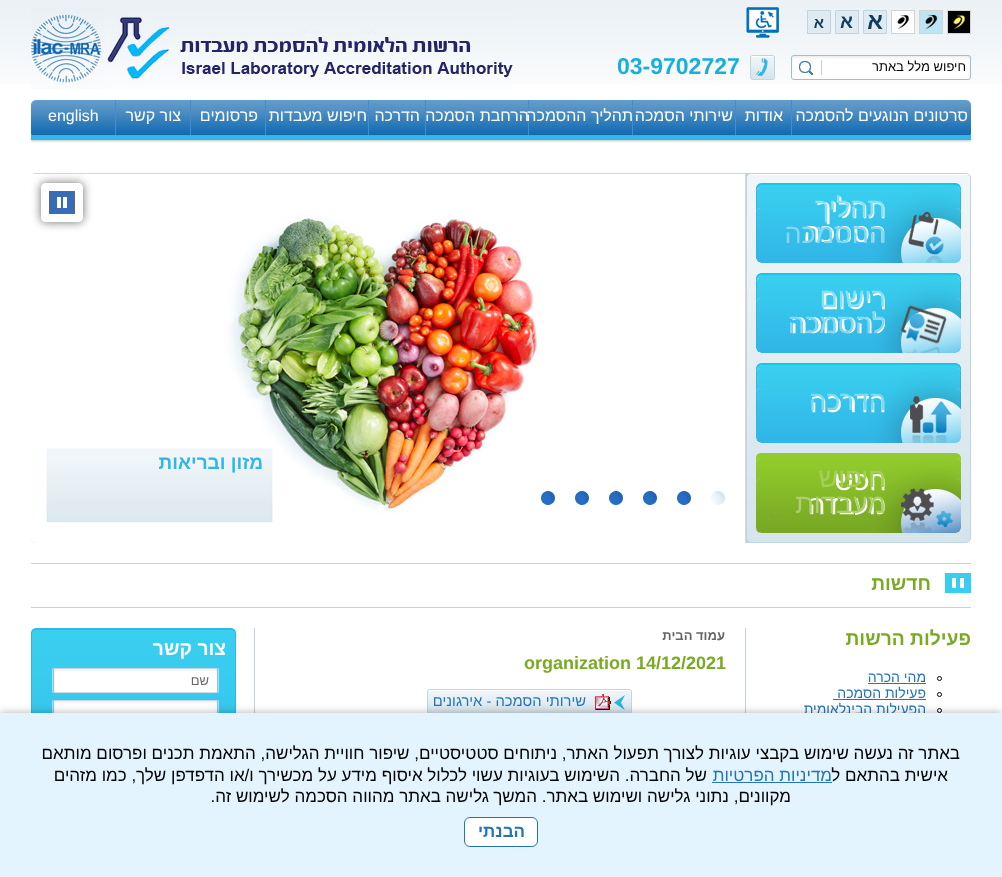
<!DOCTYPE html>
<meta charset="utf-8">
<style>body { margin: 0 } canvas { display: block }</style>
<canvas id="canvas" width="1002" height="877"></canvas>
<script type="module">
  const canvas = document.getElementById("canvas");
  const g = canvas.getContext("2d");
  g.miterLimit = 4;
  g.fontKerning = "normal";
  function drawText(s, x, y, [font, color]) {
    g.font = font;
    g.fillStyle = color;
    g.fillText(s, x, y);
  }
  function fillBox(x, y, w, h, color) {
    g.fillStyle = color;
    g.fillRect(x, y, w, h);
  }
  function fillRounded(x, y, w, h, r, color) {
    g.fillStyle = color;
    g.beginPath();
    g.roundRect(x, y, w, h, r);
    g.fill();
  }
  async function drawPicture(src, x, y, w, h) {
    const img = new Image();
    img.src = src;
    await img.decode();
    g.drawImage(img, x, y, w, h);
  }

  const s1 = ["bold 23px Liberation Sans", "#113C5E"];
  const s2 = ["bold 19px Liberation Sans", "#113C5E"];
  const s3 = ["bold 15px Liberation Sans", "#113C5E"];
  const s4 = ["13px Liberation Sans", "#000000"];
  const s5 = ["bold 23px Liberation Sans", "#18AEDE"];
  const s6 = ["16px Liberation Sans", "#FFFFFF"];
  const s7 = ["27px Liberation Sans", "#8ADFF5"];
  const s8 = ["27px Liberation Sans", "#84D8F2"];
  const s9 = ["27px Liberation Sans", "#7ED9F2"];
  const s10 = ["bold 19px Liberation Sans", "#31B6E7"];
  const s11 = ["27px Liberation Sans", "#A4D059"];
  const s12 = ["27px Liberation Sans", "#ADCF73"];
  const s13 = ["bold 19.25px Liberation Sans", "#79AA24"];
  const s14 = ["14px Liberation Sans", "#2375B7"];
  const s15 = ["bold 13px Liberation Sans", "#666666"];
  const s16 = ["bold 18px Liberation Sans", "#79AA24"];
  const s17 = ["14.75px Liberation Sans", "#2375B7"];
  const s18 = ["bold 19.25px Liberation Sans", "#FFFFFF"];
  const s19 = ["13px Liberation Sans", "#666666"];
  const s20 = ["17px Liberation Sans", "#000000"];
  const s21 = ["17px Liberation Sans", "#2375B7"];
  const s22 = ["bold 17px Liberation Sans", "#2375B7"];

  fillBox(0, 0, 1002, 877, "#FFFFFF");
  await drawPicture("pic1.png", 0, 0, 1002, 84);
  await drawPicture("pic2.png", 947, 10, 24, 24);
  await drawPicture("pic3.png", 919, 10, 24, 24);
  await drawPicture("pic4.png", 891, 10, 24, 24);
  g.fillStyle = "#E0EBF1";
  g.beginPath();
  g.rect(863.5, 10.5, 23, 23);
  g.fill();
  g.strokeStyle = "#BFD5E1";
  g.stroke();
  g.direction = "rtl";
  drawText("א", 883, 29, s1);
  g.fillStyle = "#E0EBF1";
  g.beginPath();
  g.rect(835.5, 10.5, 23, 23);
  g.fill();
  g.stroke();
  drawText("א", 853, 28, s2);
  g.fillStyle = "#E0EBF1";
  g.beginPath();
  g.rect(807.5, 10.5, 23, 23);
  g.fill();
  g.stroke();
  drawText("א", 824, 28, s3);
  await drawPicture("pic5.png", 745, 6, 35, 32);
  await drawPicture("pic6.png", 31, 8, 482, 81);
  await drawPicture("pic7.png", 791, 55, 180, 25);
  drawText("חיפוש מלל באתר", 966, 71, s4);
  await drawPicture("pic8.png", 750, 55, 25, 25);
  g.direction = "ltr";
  drawText("03-9702727", 617, 74, s5);
  await drawPicture("pic9.png", 31, 100, 940, 43);
  g.direction = "rtl";
  drawText("סרטונים הנוגעים להסמכה", 968, 121, s6);
  fillBox(791, 100, 1, 35, "#428CD2");
  drawText("אודות", 783, 121, s6);
  fillBox(735, 100, 1, 35, "#428CD2");
  drawText("שירותי הסמכה", 733, 121, s6);
  fillBox(632, 100, 1, 35, "#428CD2");
  fillBox(528, 100, 1, 35, "#428CD2");
  drawText("תהליך ההסמכה", 633, 121, s6);
  drawText("הרחבת הסמכה", 529, 121, s6);
  fillBox(425, 100, 1, 35, "#428CD2");
  drawText("הדרכה", 420, 121, s6);
  fillBox(368, 100, 1, 35, "#428CD2");
  drawText("חיפוש מעבדות", 367, 121, s6);
  fillBox(265, 100, 1, 35, "#428CD2");
  drawText("פרסומים", 258, 121, s6);
  fillBox(190, 100, 1, 35, "#428CD2");
  drawText("צור קשר", 181, 121, s6);
  fillBox(115, 100, 1, 35, "#428CD2");
  g.direction = "ltr";
  drawText("english", 48, 121, s6);
  await drawPicture("pic10.png", 746, 173, 225, 370);
  await drawPicture("pic11.png", 756, 183, 205, 80);
  g.direction = "rtl";
  drawText("תהליך", 886, 217, s7);
  drawText("ההסמכה", 886, 243, s8);
  await drawPicture("pic12.png", 756, 273, 205, 80);
  drawText("רישום", 886, 307, s7);
  drawText("להסמכה", 886, 333, s8);
  await drawPicture("pic13.png", 756, 363, 205, 80);
  drawText("הדרכה", 886, 410, s9);
  g.save();
  g.beginPath();
  g.rect(31, 173, 715, 370);
  g.clip();
  g.strokeStyle = "#D7D7D7";
  g.strokeRect(29.5, 173.5, 716, 371);
  g.restore();
  await drawPicture("pic15.png", 31, 174, 714, 369);
  await drawPicture("pic19.png", 31, 173, 4, 370);
  g.save();
  g.beginPath();
  g.moveTo(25, 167);
  g.lineTo(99, 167);
  g.lineTo(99, 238);
  g.lineTo(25, 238);
  g.closePath();
  g.moveTo(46, 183);
  g.lineTo(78, 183);
  g.bezierCurveTo(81, 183, 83, 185, 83, 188);
  g.lineTo(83, 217);
  g.bezierCurveTo(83, 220, 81, 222, 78, 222);
  g.lineTo(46, 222);
  g.bezierCurveTo(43, 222, 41, 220, 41, 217);
  g.lineTo(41, 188);
  g.bezierCurveTo(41, 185, 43, 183, 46, 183);
  g.closePath();
  g.clip("evenodd");
  g.fillStyle = "rgba(0, 0, 0, 0.3)";
  g.filter = "blur(5px)";
  g.beginPath();
  g.roundRect(41, 183, 42, 39, 5);
  g.fill();
  g.filter = "none";
  g.filter = "blur(5px)";
  g.beginPath();
  g.roundRect(41, 183, 42, 39, 5);
  g.fill();
  g.filter = "none";
  g.restore();
  fillRounded(41, 183, 42, 39, 5, "rgba(255, 255, 255, 0.3)");
  g.strokeStyle = "#666666";
  g.strokeRect(49.5, 191.5, 25, 22);
  await drawPicture("pic14.png", 50, 192, 24, 21);
  await drawPicture("pic16.png", 46, 448, 227, 75);
  drawText("מזון ובריאות", 263, 469, s10);
  await drawPicture("pic17.png", 711, 491, 14, 14);
  await drawPicture("pic18.png", 677, 491, 14, 14);
  await drawPicture("pic18.png", 643, 491, 14, 14);
  await drawPicture("pic18.png", 609, 491, 14, 14);
  await drawPicture("pic18.png", 575, 491, 14, 14);
  await drawPicture("pic18.png", 541, 491, 14, 14);
  await drawPicture("pic20.png", 756, 453, 205, 80);
  drawText("חיפוש", 886, 487, s11);
  drawText("מעבדות", 886, 513, s12);
  fillBox(31, 563, 940, 1, "#BFD5E1");
  fillBox(31, 607, 940, 1, "#BFD5E1");
  fillBox(945, 573, 26, 20, "#39CEEF");
  await drawPicture("pic21.png", 952, 578, 12, 10);
  drawText("חדשות", 931, 590, s13);
  drawText("פעילות הרשות", 971, 645, s13);
  g.beginPath();
  g.arc(939.5, 678.5, 2, 0, Math.PI * 2);
  g.strokeStyle = "#000000";
  g.stroke();
  drawText("מהי הכרה", 926, 682, s14);
  fillBox(868, 683, 58, 1, "#2375B7");
  g.beginPath();
  g.arc(939.5, 694.5, 2, 0, Math.PI * 2);
  g.stroke();
  drawText("פעילות הסמכה", 926, 698, s14);
  fillBox(833, 699, 93, 1, "#2375B7");
  g.beginPath();
  g.arc(939.5, 710.5, 2, 0, Math.PI * 2);
  g.stroke();
  drawText("הפעילות הבינלאומית", 926, 714, s14);
  fillBox(745, 628, 1, 85, "#BFD5E1");
  fillBox(254, 628, 1, 85, "#BFD5E1");
  drawText("עמוד הבית", 725, 640, s15);
  g.direction = "ltr";
  drawText("organization 14/12/2021", 524, 669, s16);
  await drawPicture("pic22.png", 427, 689, 205, 24);
  await drawPicture("pic23.png", 595, 694, 16, 16);
  g.direction = "rtl";
  drawText("שירותי הסמכה - אירגונים", 586, 706, s17);
  await drawPicture("pic24.png", 31, 628, 205, 85);
  drawText("צור קשר", 226, 655, s18);
  await drawPicture("pic25.png", 52, 668, 167, 25);
  drawText("שם", 209, 685, s19);
  await drawPicture("pic26.png", 52, 700, 167, 13);
  g.fillStyle = "rgba(0, 0, 0, 0.3)";
  g.filter = "blur(4px)";
  g.beginPath();
  g.rect(0, 713, 1002, 164);
  g.fill();
  g.filter = "none";
  fillBox(0, 713, 1002, 164, "#E3F4FF");
  drawText("באתר זה נעשה שימוש בקבצי עוגיות לצורך תפעול האתר, ניתוחים סטטיסטיים, שיפור חוויית הגלישה, התאמת תכנים ופרסום מותאם", 960, 759, s20);
  drawText("אישית בהתאם ל", 948, 781, s20);
  drawText("מדיניות הפרטיות", 832, 781, s21);
  fillBox(712, 782, 120, 1, "#2475B6");
  drawText("של החברה. השימוש בעוגיות עשוי לכלול איסוף מידע על מכשירך ו/או הדפדפן שלך, כמו מזהים", 707, 781, s20);
  drawText("מקוונים, נתוני גלישה ושימוש באתר. המשך", 791, 802, s20);
  drawText("גלישה באתר מהווה הסכמה לשימוש זה.", 489, 802, s20);
  g.fillStyle = "#FFFFFF";
  g.beginPath();
  g.roundRect(464.5, 817.5, 73, 29, 5.5);
  g.fill();
  g.strokeStyle = "#2475B6";
  g.stroke();
  drawText("הבנתי", 525, 837, s22);
</script>
